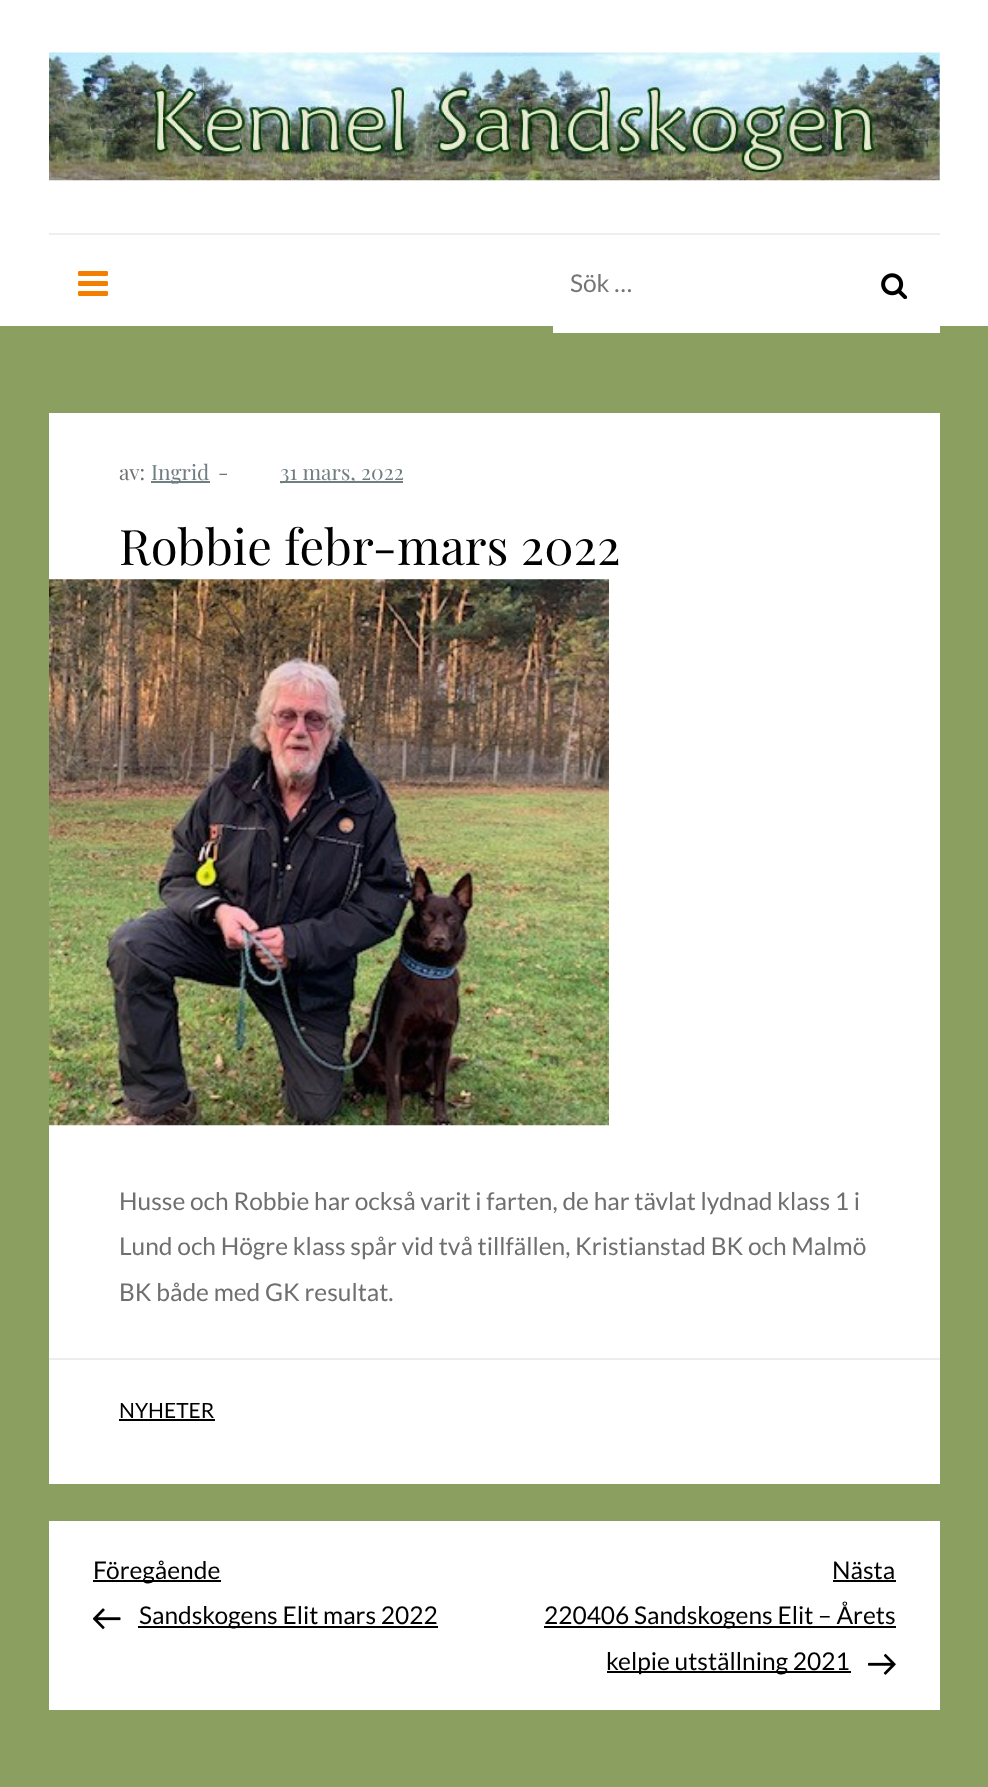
<!DOCTYPE html>
<meta charset="utf-8">
<style>body { margin: 0 } canvas { display: block }</style>
<canvas id="canvas" width="988" height="1787"></canvas>
<script type="module">
  const canvas = document.getElementById("canvas");
  const g = canvas.getContext("2d");
  g.miterLimit = 4;
  g.fontKerning = "normal";
  function drawText(s, x, y, [font, color]) {
    g.font = font;
    g.fillStyle = color;
    g.fillText(s, x, y);
  }
  function fillBox(x, y, w, h, color) {
    g.fillStyle = color;
    g.fillRect(x, y, w, h);
  }
  async function drawPicture(src, x, y, w, h) {
    const img = new Image();
    img.src = src;
    await img.decode();
    g.drawImage(img, x, y, w, h);
  }

  const s1 = ["24.5px Lato", "#757575"];
  const s2 = ["21px Playfair Display", "#6F6F6F"];
  const s3 = ["21px Playfair Display", "#717E81"];
  const s4 = ["49px Playfair Display", "#000000"];
  const s5 = ["24.5px Lato", "#6F6F6F"];
  const s6 = ["21px Lato", "#000000"];
  const s7 = ["24.5px Lato", "#000000"];

  fillBox(0, 0, 988, 1787, "#8BA060");
  fillBox(0, 0, 988, 326, "#FFFFFF");
  fillBox(49, 233, 891, 2, "#EEEEEE");
  await drawPicture("pic1.png", 49, 52, 891, 129);
  await drawPicture("pic2.png", 78, 271, 30, 25);
  fillBox(553, 326, 387, 7, "#FFFFFF");
  drawText("Sök …", 570, 292, s1);
  await drawPicture("pic3.png", 881, 273, 27, 26);
  fillBox(49, 413, 891, 1071, "#FFFFFF");
  drawText("av:", 119, 480, s2);
  fillBox(151, 481, 59, 2, "#717E81");
  drawText("Ingrid", 151, 480, s3);
  drawText("-", 218, 480, s2);
  fillBox(280, 481, 123, 2, "#717E81");
  drawText("31 mars, 2022", 280, 480, s3);
  drawText("Robbie febr-mars 2022", 119, 565, s4);
  await drawPicture("pic4.png", 49, 579, 560, 547);
  fillBox(49, 1358, 891, 2, "#EDEDED");
  drawText("Husse och Robbie har också varit i farten, de har tävlat lydnad klass 1 i", 119, 1210, s5);
  drawText("Lund och Högre klass spår vid två tillfällen, Kristianstad BK och Malmö", 119, 1255, s5);
  drawText("BK både med GK resultat.", 119, 1301, s5);
  drawText("NYHETER", 119, 1418, s6);
  fillBox(119, 1419, 96, 2, "#000000");
  fillBox(49, 1521, 891, 189, "#FFFFFF");
  fillBox(93, 1580, 128, 2, "#000000");
  drawText("Föregående", 93, 1579, s7);
  await drawPicture("pic5.png", 93, 1608, 28, 22);
  fillBox(138, 1626, 300, 2, "#000000");
  drawText("Sandskogens Elit mars 2022", 139, 1624, s7);
  drawText("Nästa", 832, 1579, s7);
  fillBox(833, 1580, 63, 2, "#000000");
  fillBox(544, 1626, 352, 2, "#000000");
  drawText("220406 Sandskogens Elit – Årets", 544, 1624, s7);
  fillBox(607, 1671, 244, 2, "#000000");
  drawText("kelpie utställning 2021", 606, 1670, s7);
  await drawPicture("pic6.png", 868, 1653, 28, 22);
</script>
